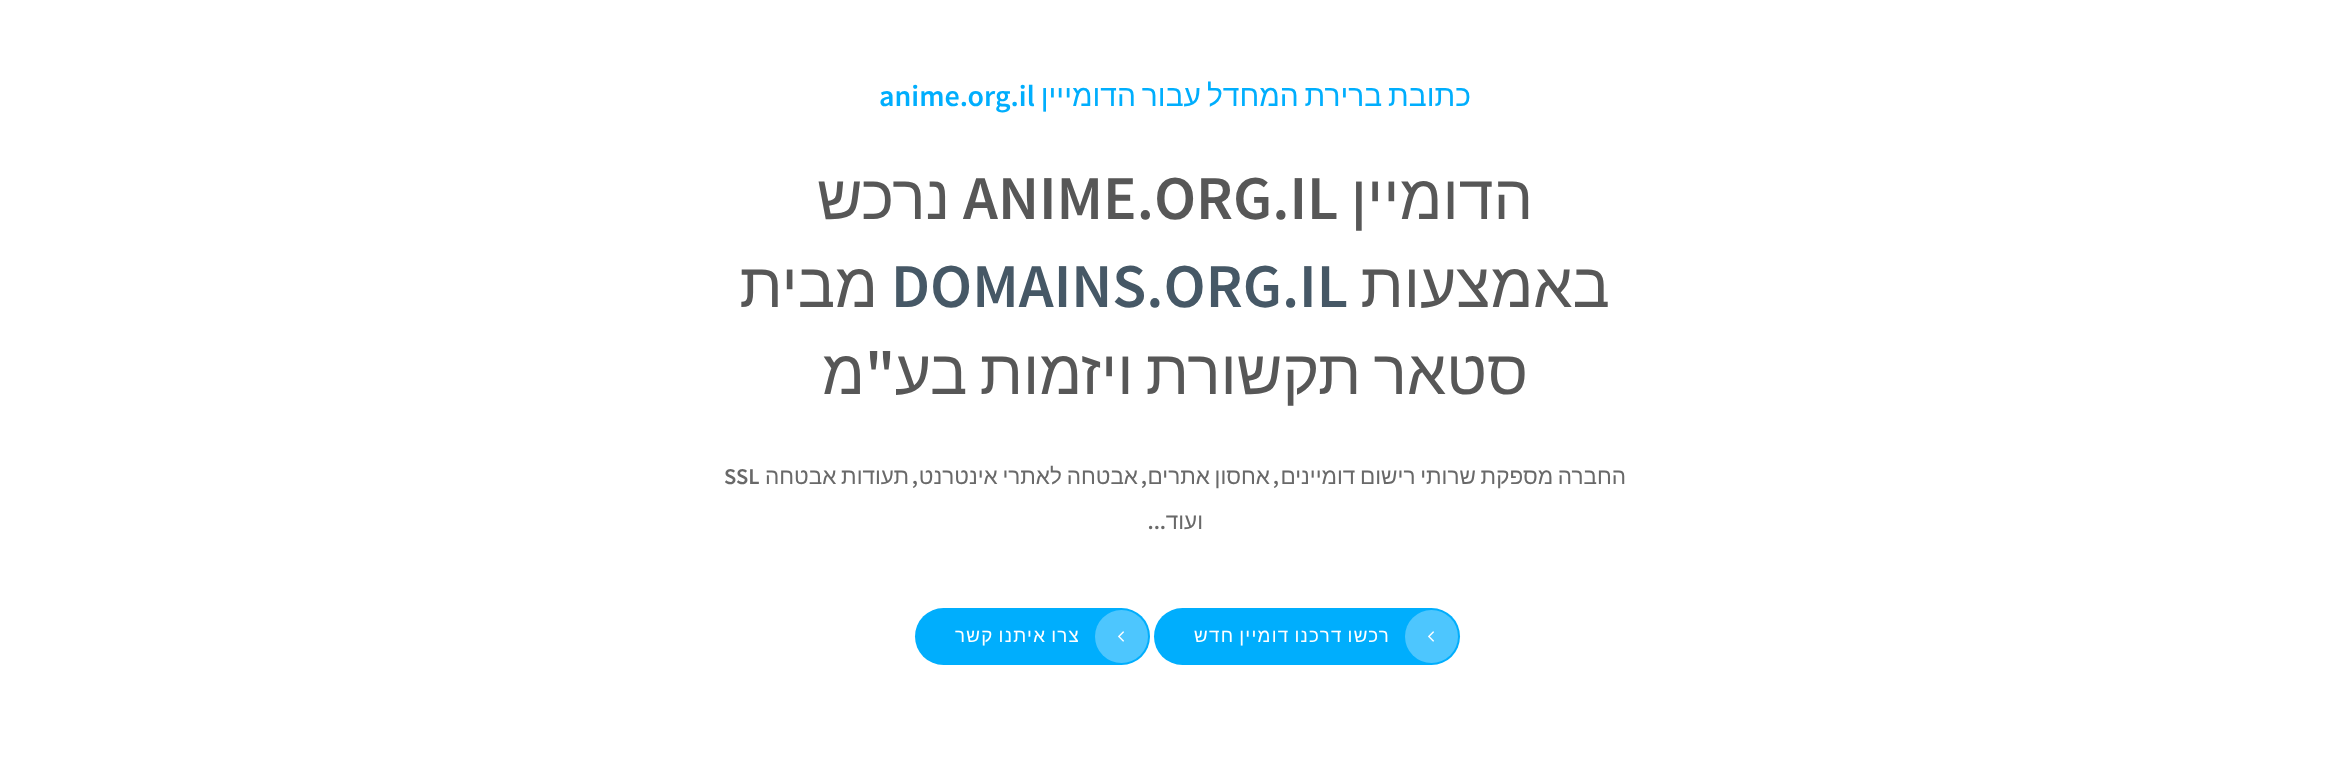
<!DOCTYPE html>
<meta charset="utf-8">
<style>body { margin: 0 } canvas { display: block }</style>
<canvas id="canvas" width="2349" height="763"></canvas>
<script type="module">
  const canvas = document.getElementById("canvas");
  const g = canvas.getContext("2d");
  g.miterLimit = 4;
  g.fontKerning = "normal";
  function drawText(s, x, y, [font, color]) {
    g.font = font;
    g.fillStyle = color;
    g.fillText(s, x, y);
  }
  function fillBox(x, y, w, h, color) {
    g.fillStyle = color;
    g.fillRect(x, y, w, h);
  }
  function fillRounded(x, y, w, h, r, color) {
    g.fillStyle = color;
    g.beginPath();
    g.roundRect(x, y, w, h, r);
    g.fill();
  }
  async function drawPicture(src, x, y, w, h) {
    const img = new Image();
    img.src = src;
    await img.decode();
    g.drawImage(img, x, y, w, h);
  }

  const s1 = ["30px Liberation Sans", "#00AEFD"];
  const s2 = ["600 30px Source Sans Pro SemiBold", "#00AEFD"];
  const s3 = ["62.5px Liberation Sans", "#575757"];
  const s4 = ["600 62.5px Source Sans Pro SemiBold", "#575757"];
  const s5 = ["600 62.5px Source Sans Pro SemiBold", "#465866"];
  const s6 = ["22.5px Liberation Sans", "#696969"];
  const s7 = ["600 22.5px Source Sans Pro SemiBold", "#696969"];
  const s8 = ["18.75px Liberation Sans", "#FFFFFF"];

  fillBox(0, 0, 2349, 763, "#FFFFFF");
  g.wordSpacing = "-2.5px";
  g.direction = "rtl";
  drawText("כתובת ברירת המחדל עבור הדומייין", 1471, 106, s1);
  g.wordSpacing = "0px";
  g.direction = "ltr";
  drawText("anime.org.il", 879, 106, s2);
  g.direction = "rtl";
  drawText("הדומיין", 1533, 219, s3);
  g.direction = "ltr";
  drawText("ANIME.ORG.IL", 963, 219, s4);
  g.direction = "rtl";
  drawText("נרכש", 950, 219, s3);
  drawText("באמצעות", 1610, 307, s3);
  g.direction = "ltr";
  drawText("DOMAINS.ORG.IL", 891, 307, s5);
  g.direction = "rtl";
  drawText("מבית", 878, 307, s3);
  g.wordSpacing = "-5px";
  drawText("סטאר תקשורת ויזמות בע", 1528, 394, s3);
  g.wordSpacing = "0px";
  drawText("\"", 895, 394, s4);
  drawText("מ", 865, 394, s3);
  g.wordSpacing = "-1.5px";
  drawText("החברה מספקת שרותי רישום דומיינים", 1626, 484, s6);
  g.wordSpacing = "0px";
  drawText(",", 1279, 484, s7);
  g.wordSpacing = "-1.5px";
  drawText("אחסון אתרים", 1270, 484, s6);
  g.wordSpacing = "0px";
  drawText(",", 1147, 484, s7);
  g.wordSpacing = "-1.5px";
  drawText("אבטחה לאתרי אינטרנט", 1138, 484, s6);
  g.wordSpacing = "0px";
  drawText(",", 918, 484, s7);
  g.wordSpacing = "-1.5px";
  drawText("תעודות אבטחה", 909, 484, s6);
  g.wordSpacing = "0px";
  g.direction = "ltr";
  drawText("SSL", 724, 484, s7);
  g.direction = "rtl";
  drawText("ועוד", 1203, 529, s6);
  drawText("...", 1166, 529, s7);
  fillRounded(1154, 608, 306, 57, 28.5, "#00AEFD");
  g.fillStyle = "#4DC6FE";
  g.beginPath();
  g.arc(1431.5, 636.5, 26.5, 0, Math.PI * 2);
  g.fill();
  await drawPicture("pic1.png", 1428, 631, 6, 11);
  g.letterSpacing = "1.25px";
  g.wordSpacing = "-1.5px";
  drawText("רכשו דרכנו דומיין חדש", 1390, 642, s8);
  fillRounded(915, 608, 235, 57, 28.5, "#00AEFD");
  g.fillStyle = "#4DC6FE";
  g.beginPath();
  g.arc(1121.5, 636.5, 26.5, 0, Math.PI * 2);
  g.fill();
  await drawPicture("pic1.png", 1118, 631, 6, 11);
  drawText("צרו איתנו קשר", 1080, 642, s8);
</script>
